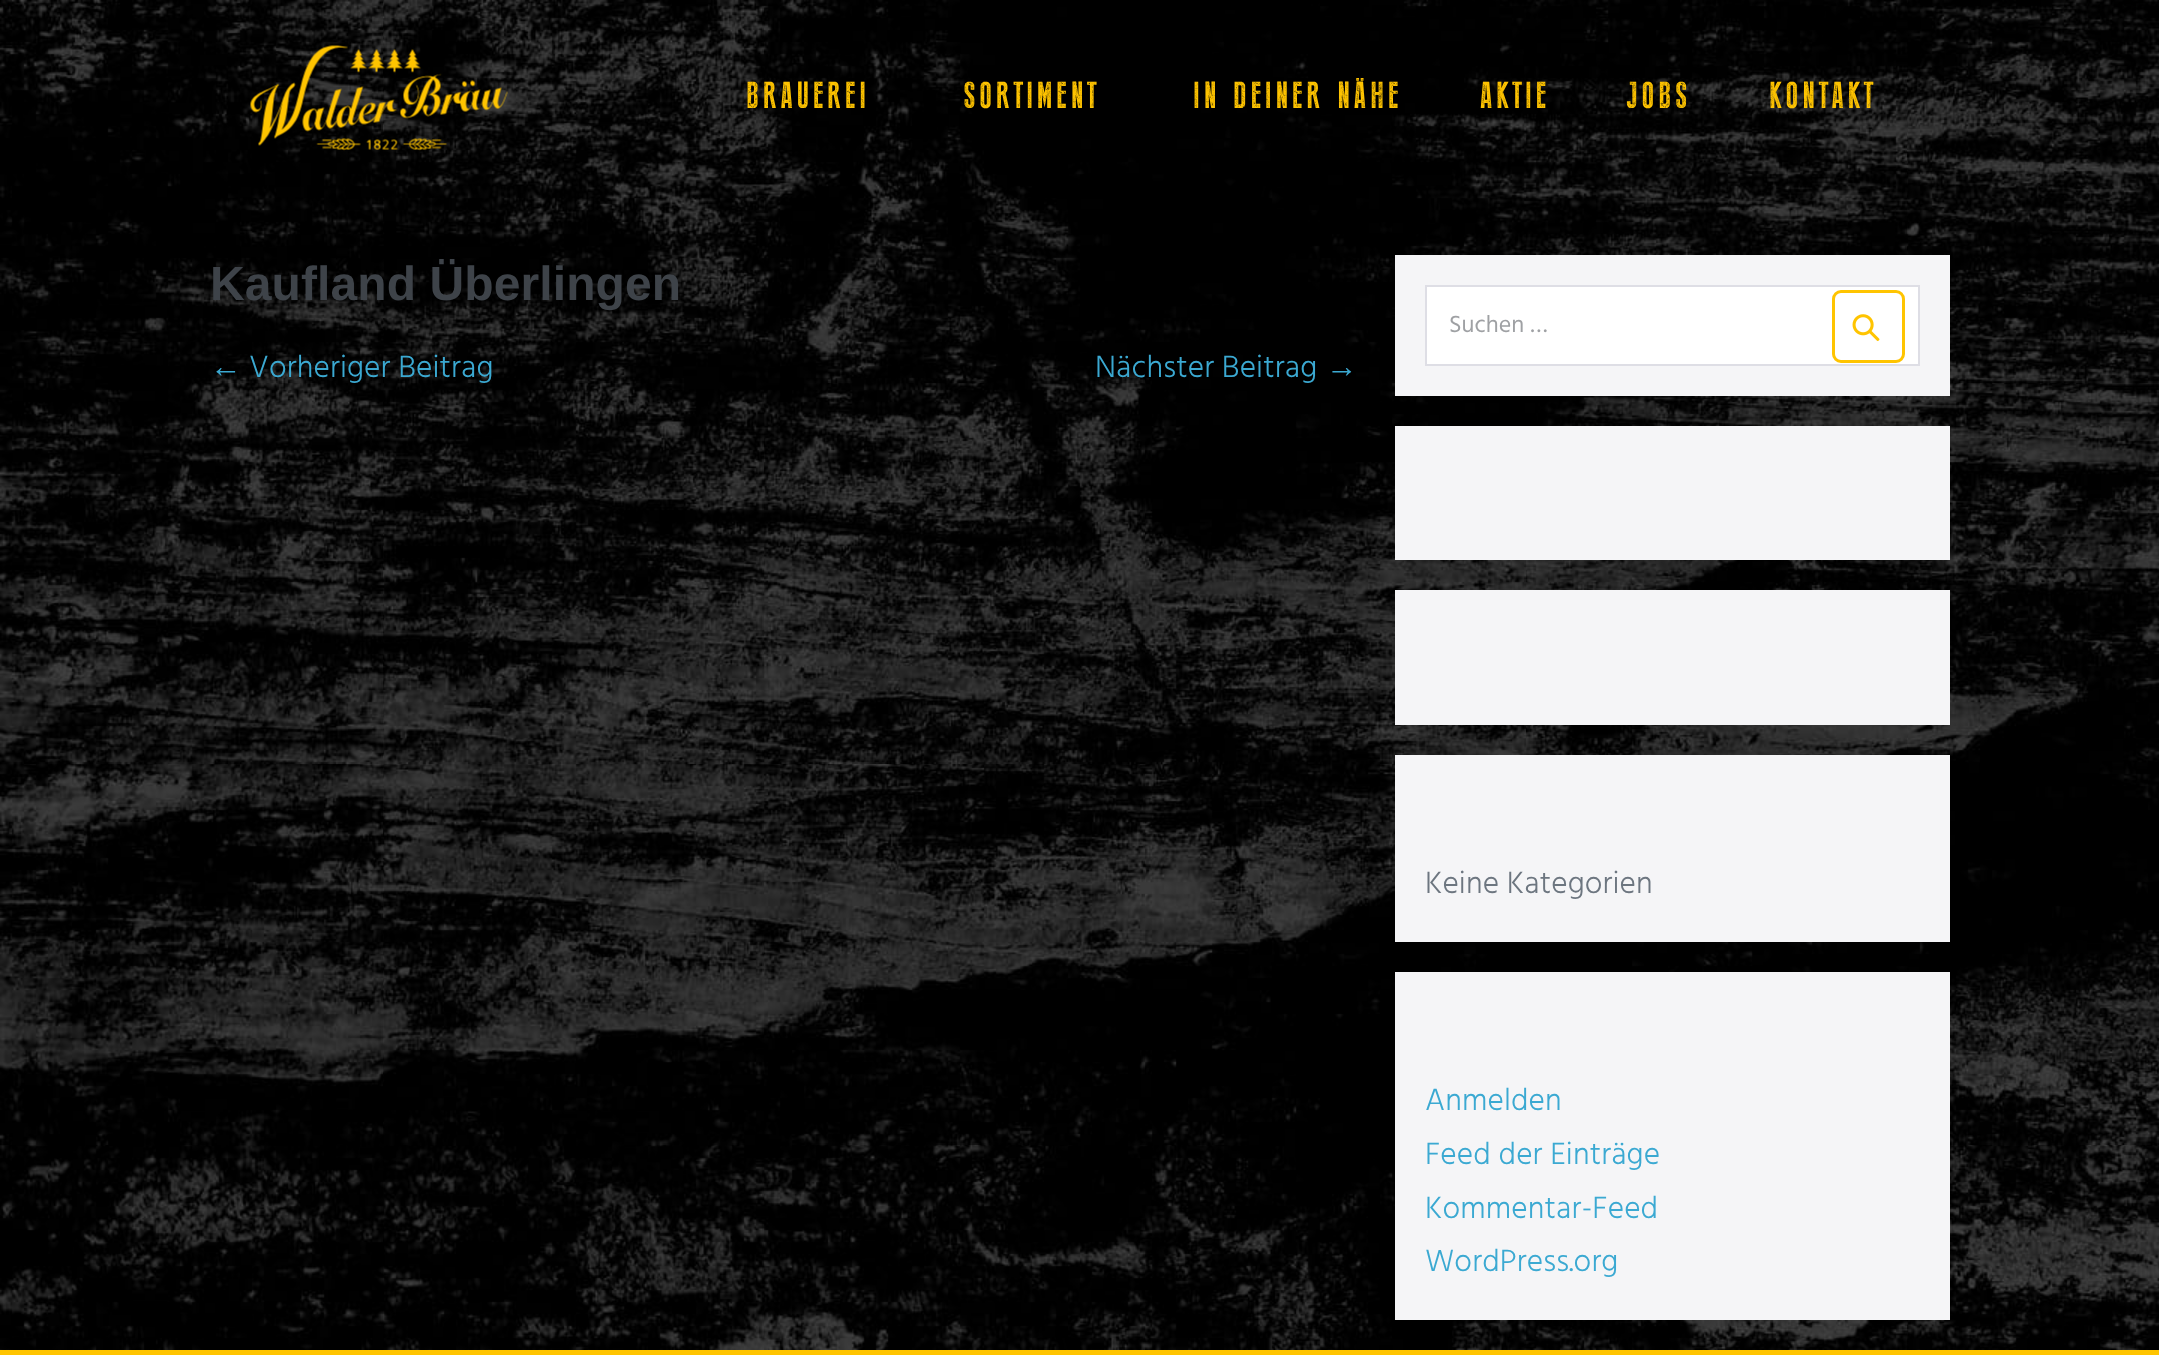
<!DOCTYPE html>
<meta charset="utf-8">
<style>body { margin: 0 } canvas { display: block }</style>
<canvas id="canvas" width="2159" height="1355"></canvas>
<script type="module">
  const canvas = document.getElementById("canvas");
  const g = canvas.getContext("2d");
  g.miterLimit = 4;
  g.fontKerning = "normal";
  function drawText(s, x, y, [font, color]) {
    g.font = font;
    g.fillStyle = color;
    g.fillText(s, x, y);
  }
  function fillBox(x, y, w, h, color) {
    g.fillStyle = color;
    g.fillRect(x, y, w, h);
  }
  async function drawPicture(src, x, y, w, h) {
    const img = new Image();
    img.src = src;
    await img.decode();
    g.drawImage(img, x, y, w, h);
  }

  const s1 = ["37.5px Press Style", "#FFC400"];
  const s2 = ["bold 48px Liberation Sans", "#3E4349"];
  const s3 = ["31.5px Liberation Sans", "#3BA9D2"];
  const s4 = ["300 31.5px Hind", "#3BA9D2"];
  const s5 = ["24px Hind", "#9FA1A4"];
  const s6 = ["300 31.5px Hind", "#6D7680"];

  fillBox(0, 0, 2159, 1355, "#FFFFFF");
  await drawPicture("pic1.png", 0, 0, 2159, 1350);
  await drawPicture("pic2.png", 250, 45, 258, 106);
  g.letterSpacing = "3.75px";
  drawText("BRAUEREI", 746, 108, s1);
  drawText("SORTIMENT", 963, 108, s1);
  drawText("IN DEINER NÄHE", 1193, 108, s1);
  drawText("AKTIE", 1480, 108, s1);
  drawText("JOBS", 1627, 108, s1);
  drawText("KONTAKT", 1769, 108, s1);
  g.letterSpacing = "0.1px";
  drawText("Kaufland Überlingen", 210, 300, s2);
  drawText("←", 210, 377, s3);
  drawText("Vorheriger Beitrag", 249, 377, s4);
  drawText("Nächster Beitrag", 1095, 377, s4);
  drawText("→", 1326, 377, s3);
  fillBox(1395, 255, 555, 141, "#F5F5F7");
  g.fillStyle = "#FFFFFF";
  g.beginPath();
  g.rect(1426, 286, 493, 79);
  g.fill();
  g.strokeStyle = "#DEDEE5";
  g.lineWidth = 2;
  g.stroke();
  g.letterSpacing = "0px";
  drawText("Suchen …", 1449, 332, s5);
  g.beginPath();
  g.roundRect(1833.5, 291.5, 70, 70, 7.5);
  g.strokeStyle = "#FFC400";
  g.lineWidth = 3;
  g.stroke();
  await drawPicture("pic3.png", 1852, 314, 28, 28);
  fillBox(1395, 426, 555, 134, "#F5F5F7");
  fillBox(1395, 590, 555, 135, "#F5F5F7");
  fillBox(1395, 755, 555, 187, "#F5F5F7");
  g.letterSpacing = "0.1px";
  drawText("Keine Kategorien", 1425, 893, s6);
  fillBox(1395, 972, 555, 348, "#F5F5F7");
  drawText("Anmelden", 1425, 1110, s4);
  drawText("Feed der Einträge", 1425, 1164, s4);
  drawText("Kommentar-Feed", 1425, 1218, s4);
  drawText("WordPress.org", 1425, 1271, s4);
  fillBox(0, 1350, 2159, 5, "#FFC400");
</script>
